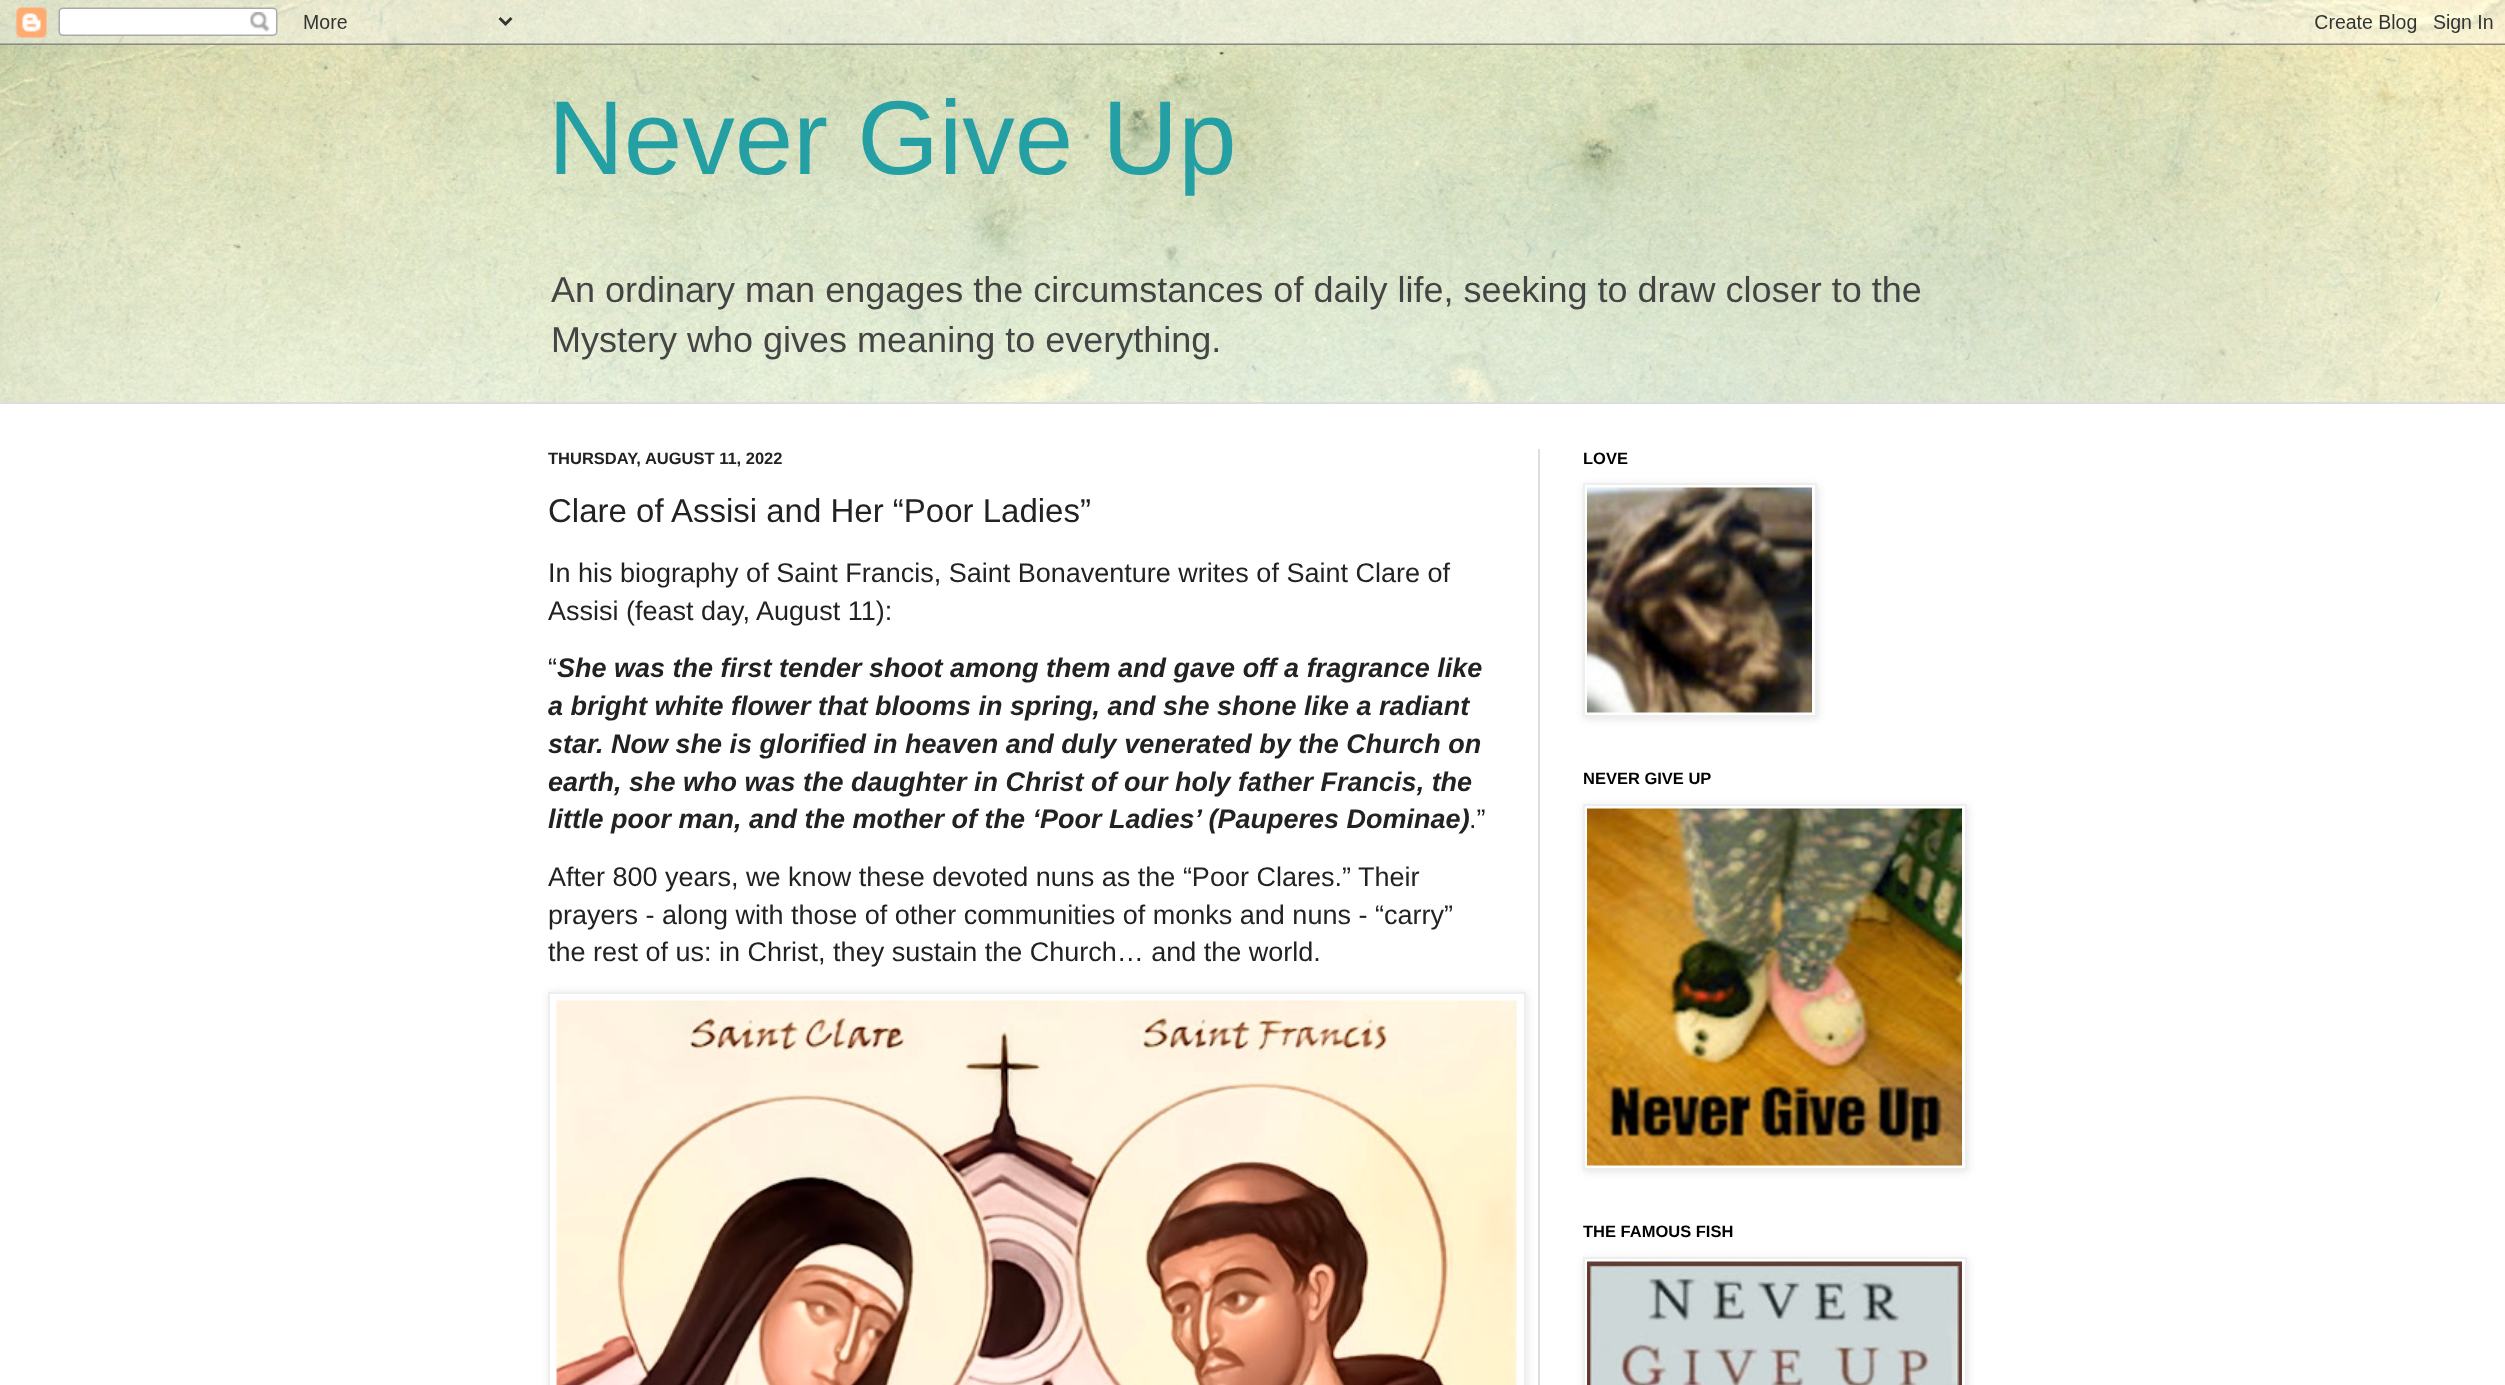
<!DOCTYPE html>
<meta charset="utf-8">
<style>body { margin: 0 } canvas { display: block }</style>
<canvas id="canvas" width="2505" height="1385"></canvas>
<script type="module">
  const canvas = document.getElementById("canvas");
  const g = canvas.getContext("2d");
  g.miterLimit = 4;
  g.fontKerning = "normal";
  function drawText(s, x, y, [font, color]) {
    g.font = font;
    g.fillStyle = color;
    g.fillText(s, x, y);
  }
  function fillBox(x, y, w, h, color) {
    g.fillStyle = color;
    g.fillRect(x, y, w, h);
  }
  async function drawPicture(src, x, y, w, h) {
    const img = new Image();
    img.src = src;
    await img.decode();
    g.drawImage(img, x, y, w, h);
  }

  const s1 = ["105px Liberation Sans", "#249FA3"];
  const s2 = ["36px Liberation Sans", "#444444"];
  const s3 = ["bold 16.5px Liberation Sans", "#222222"];
  const s4 = ["33px Liberation Sans", "#222222"];
  const s5 = ["27px Liberation Sans", "#222222"];
  const s6 = ["italic bold 27px Liberation Sans", "#222222"];
  const s7 = ["bold 16.5px Liberation Sans", "#000000"];

  fillBox(0, 0, 2505, 1385, "#FFFFFF");
  await drawPicture("pic1.png", 0, 0, 2505, 402);
  await drawPicture("pic2.png", 0, 0, 2505, 402);
  await drawPicture("pic3.png", 0, 0, 2505, 45);
  drawText("Never Give Up", 548, 174, s1);
  drawText("An ordinary man engages the circumstances of daily life, seeking to draw closer to the", 551, 302, s2);
  drawText("Mystery who gives meaning to everything.", 551, 352, s2);
  fillBox(0, 402, 2505, 2, "#DDDDDD");
  fillBox(1538, 449, 2, 936, "#DDDDDD");
  drawText("THURSDAY, AUGUST 11, 2022", 548, 464, s3);
  drawText("Clare of Assisi and Her “Poor Ladies”", 548, 522, s4);
  drawText("In his biography of Saint Francis, Saint Bonaventure writes of Saint Clare of", 548, 582, s5);
  drawText("Assisi (feast day, August 11):", 548, 620, s5);
  drawText("“", 548, 677, s5);
  drawText("She was the first tender shoot among them and gave off a fragrance like", 557, 677, s6);
  drawText("a bright white flower that blooms in spring, and she shone like a radiant", 548, 715, s6);
  drawText("star. Now she is glorified in heaven and duly venerated by the Church on", 548, 753, s6);
  drawText("earth, she who was the daughter in Christ of our holy father Francis, the", 548, 791, s6);
  drawText("little poor man, and the mother of the ‘Poor Ladies’ (Pauperes Dominae)", 548, 828, s6);
  drawText(".”", 1469, 828, s5);
  drawText("After 800 years, we know these devoted nuns as the “Poor Clares.” Their", 548, 886, s5);
  drawText("prayers - along with those of other communities of monks and nuns - “carry”", 548, 924, s5);
  drawText("the rest of us: in Christ, they sustain the Church… and the world.", 548, 961, s5);
  g.fillStyle = "rgba(0, 0, 0, 0.1)";
  g.filter = "blur(4px)";
  g.beginPath();
  g.rect(549, 993, 978, 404);
  g.fill();
  g.filter = "none";
  g.fillStyle = "#FFFFFF";
  g.beginPath();
  g.rect(549, 993, 976, 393);
  g.fill();
  g.strokeStyle = "#EEEEEE";
  g.lineWidth = 2;
  g.stroke();
  await drawPicture("pic4.png", 556, 1000, 961, 385);
  drawText("LOVE", 1583, 464, s7);
  g.fillStyle = "rgba(0, 0, 0, 0.1)";
  g.filter = "blur(4px)";
  g.beginPath();
  g.rect(1584, 485, 234, 234);
  g.fill();
  g.filter = "none";
  g.fillStyle = "#FFFFFF";
  g.beginPath();
  g.rect(1584, 484, 232, 232);
  g.fill();
  g.stroke();
  await drawPicture("pic5.png", 1587, 487, 225, 226);
  drawText("NEVER GIVE UP", 1583, 784, s7);
  g.fillStyle = "rgba(0, 0, 0, 0.1)";
  g.filter = "blur(4px)";
  g.beginPath();
  g.rect(1584, 806, 384, 366);
  g.fill();
  g.filter = "none";
  g.fillStyle = "#FFFFFF";
  g.beginPath();
  g.rect(1584, 805, 382, 364);
  g.fill();
  g.stroke();
  await drawPicture("pic6.png", 1587, 808, 375, 358);
  drawText("THE FAMOUS FISH", 1583, 1237, s7);
  g.fillStyle = "rgba(0, 0, 0, 0.1)";
  g.filter = "blur(4px)";
  g.beginPath();
  g.rect(1584, 1259, 384, 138);
  g.fill();
  g.filter = "none";
  g.fillStyle = "#FFFFFF";
  g.beginPath();
  g.rect(1584, 1258, 382, 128);
  g.fill();
  g.stroke();
  await drawPicture("pic7.png", 1587, 1261, 375, 124);
</script>
